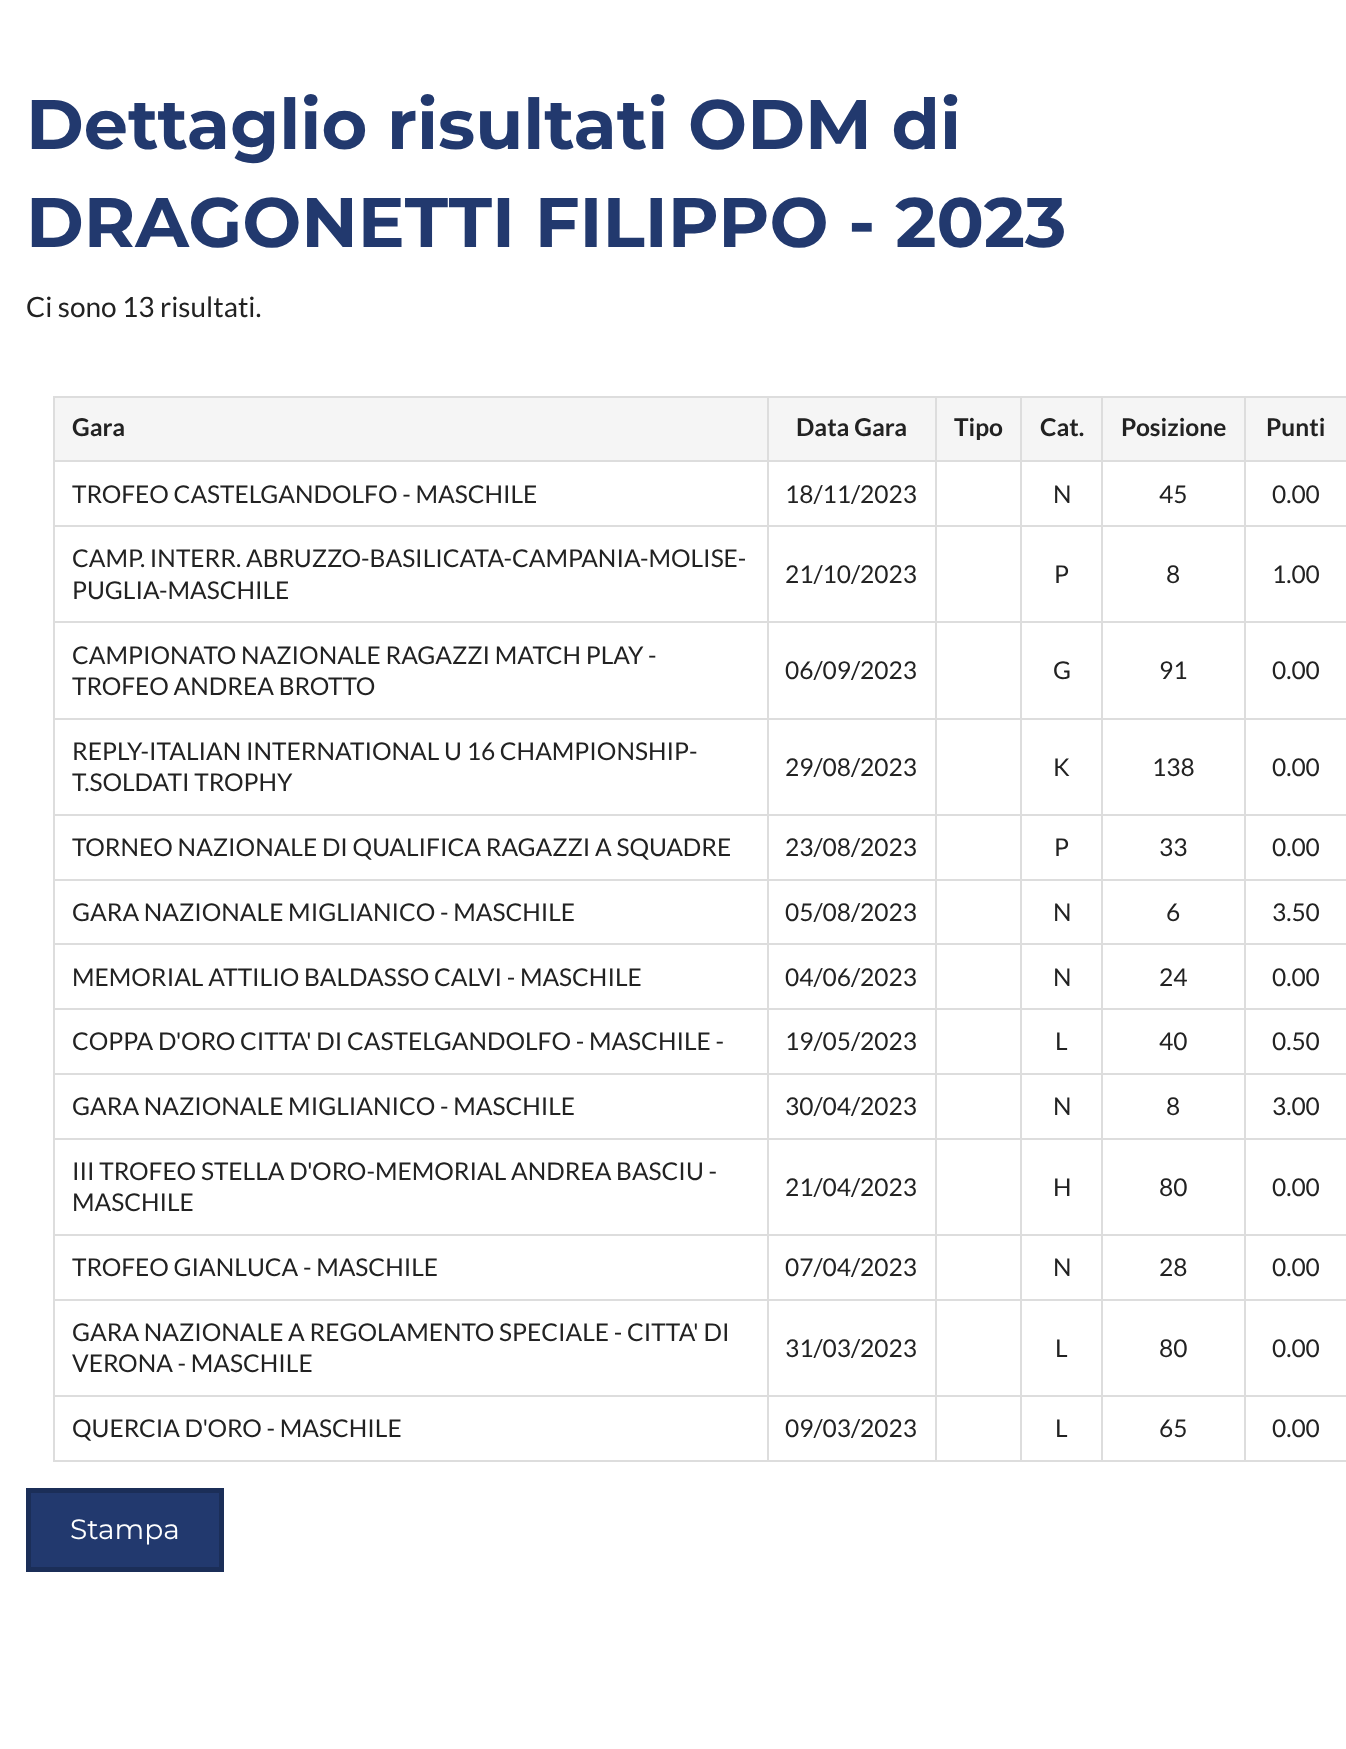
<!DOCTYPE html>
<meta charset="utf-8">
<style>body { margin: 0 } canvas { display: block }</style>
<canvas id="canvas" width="1346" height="1749"></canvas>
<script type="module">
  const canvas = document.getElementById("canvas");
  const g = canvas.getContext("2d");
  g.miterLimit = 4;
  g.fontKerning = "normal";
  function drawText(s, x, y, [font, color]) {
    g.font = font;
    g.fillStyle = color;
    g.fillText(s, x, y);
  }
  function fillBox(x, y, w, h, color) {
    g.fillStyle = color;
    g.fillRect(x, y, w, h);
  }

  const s1 = ["bold 70px Montserrat", "#22396E"];
  const s2 = ["28px Lato", "#222222"];
  const s3 = ["bold 24.5px Lato", "#222222"];
  const s4 = ["24.5px Lato", "#222222"];
  const s5 = ["28px Montserrat", "#FFFFFF"];

  fillBox(0, 0, 1346, 1749, "#FFFFFF");
  drawText("Dettaglio risultati ODM di", 26, 149, s1);
  drawText("DRAGONETTI FILIPPO - 2023", 26, 247, s1);
  drawText("Ci sono 13 risultati.", 26, 317, s2);
  fillBox(55, 398, 1291, 62, "#F5F5F5");
  fillBox(1244, 396, 102, 2, "#DDDDDD");
  fillBox(1244, 460, 102, 2, "#DDDDDD");
  fillBox(1244, 525, 102, 2, "#DDDDDD");
  fillBox(1244, 621, 102, 2, "#DDDDDD");
  fillBox(1244, 718, 102, 2, "#DDDDDD");
  fillBox(1244, 814, 102, 2, "#DDDDDD");
  fillBox(1244, 879, 102, 2, "#DDDDDD");
  fillBox(1244, 943, 102, 2, "#DDDDDD");
  fillBox(1244, 1008, 102, 2, "#DDDDDD");
  fillBox(1244, 1073, 102, 2, "#DDDDDD");
  fillBox(1244, 1138, 102, 2, "#DDDDDD");
  fillBox(1244, 1234, 102, 2, "#DDDDDD");
  fillBox(1244, 1299, 102, 2, "#DDDDDD");
  fillBox(1244, 1395, 102, 2, "#DDDDDD");
  fillBox(1244, 1460, 102, 2, "#DDDDDD");
  fillBox(1244, 1395, 2, 66, "#DDDDDD");
  fillBox(1101, 1395, 145, 2, "#DDDDDD");
  fillBox(1244, 1299, 2, 98, "#DDDDDD");
  fillBox(1101, 1299, 145, 2, "#DDDDDD");
  fillBox(1244, 1234, 2, 66, "#DDDDDD");
  fillBox(1101, 1234, 145, 2, "#DDDDDD");
  fillBox(1244, 1138, 2, 98, "#DDDDDD");
  fillBox(1101, 1138, 145, 2, "#DDDDDD");
  fillBox(1244, 1073, 2, 66, "#DDDDDD");
  fillBox(1101, 1073, 145, 2, "#DDDDDD");
  fillBox(1244, 1008, 2, 67, "#DDDDDD");
  fillBox(1101, 1008, 145, 2, "#DDDDDD");
  fillBox(1244, 943, 2, 67, "#DDDDDD");
  fillBox(1101, 943, 145, 2, "#DDDDDD");
  fillBox(1244, 879, 2, 66, "#DDDDDD");
  fillBox(1101, 879, 145, 2, "#DDDDDD");
  fillBox(1244, 814, 2, 66, "#DDDDDD");
  fillBox(1101, 814, 145, 2, "#DDDDDD");
  fillBox(1244, 718, 2, 98, "#DDDDDD");
  fillBox(1101, 718, 145, 2, "#DDDDDD");
  fillBox(1244, 621, 2, 98, "#DDDDDD");
  fillBox(1101, 621, 145, 2, "#DDDDDD");
  fillBox(1244, 525, 2, 98, "#DDDDDD");
  fillBox(1101, 525, 145, 2, "#DDDDDD");
  fillBox(1244, 460, 2, 67, "#DDDDDD");
  fillBox(1101, 460, 145, 2, "#DDDDDD");
  fillBox(1244, 396, 2, 66, "#DDDDDD");
  fillBox(1101, 396, 145, 2, "#DDDDDD");
  fillBox(1101, 1460, 145, 2, "#DDDDDD");
  fillBox(1101, 1395, 2, 66, "#DDDDDD");
  fillBox(1020, 1395, 83, 2, "#DDDDDD");
  fillBox(1101, 1299, 2, 98, "#DDDDDD");
  fillBox(1020, 1299, 83, 2, "#DDDDDD");
  fillBox(1101, 1234, 2, 66, "#DDDDDD");
  fillBox(1020, 1234, 83, 2, "#DDDDDD");
  fillBox(1101, 1138, 2, 98, "#DDDDDD");
  fillBox(1020, 1138, 83, 2, "#DDDDDD");
  fillBox(1101, 1073, 2, 66, "#DDDDDD");
  fillBox(1020, 1073, 83, 2, "#DDDDDD");
  fillBox(1101, 1008, 2, 67, "#DDDDDD");
  fillBox(1020, 1008, 83, 2, "#DDDDDD");
  fillBox(1101, 943, 2, 67, "#DDDDDD");
  fillBox(1020, 943, 83, 2, "#DDDDDD");
  fillBox(1101, 879, 2, 66, "#DDDDDD");
  fillBox(1020, 879, 83, 2, "#DDDDDD");
  fillBox(1101, 814, 2, 66, "#DDDDDD");
  fillBox(1020, 814, 83, 2, "#DDDDDD");
  fillBox(1101, 718, 2, 98, "#DDDDDD");
  fillBox(1020, 718, 83, 2, "#DDDDDD");
  fillBox(1101, 621, 2, 98, "#DDDDDD");
  fillBox(1020, 621, 83, 2, "#DDDDDD");
  fillBox(1101, 525, 2, 98, "#DDDDDD");
  fillBox(1020, 525, 83, 2, "#DDDDDD");
  fillBox(1101, 460, 2, 67, "#DDDDDD");
  fillBox(1020, 460, 83, 2, "#DDDDDD");
  fillBox(1101, 396, 2, 66, "#DDDDDD");
  fillBox(1020, 396, 83, 2, "#DDDDDD");
  fillBox(1020, 1460, 83, 2, "#DDDDDD");
  fillBox(1020, 1395, 2, 66, "#DDDDDD");
  fillBox(935, 1395, 87, 2, "#DDDDDD");
  fillBox(1020, 1299, 2, 98, "#DDDDDD");
  fillBox(935, 1299, 87, 2, "#DDDDDD");
  fillBox(1020, 1234, 2, 66, "#DDDDDD");
  fillBox(935, 1234, 87, 2, "#DDDDDD");
  fillBox(1020, 1138, 2, 98, "#DDDDDD");
  fillBox(935, 1138, 87, 2, "#DDDDDD");
  fillBox(1020, 1073, 2, 66, "#DDDDDD");
  fillBox(935, 1073, 87, 2, "#DDDDDD");
  fillBox(1020, 1008, 2, 67, "#DDDDDD");
  fillBox(935, 1008, 87, 2, "#DDDDDD");
  fillBox(1020, 943, 2, 67, "#DDDDDD");
  fillBox(935, 943, 87, 2, "#DDDDDD");
  fillBox(1020, 879, 2, 66, "#DDDDDD");
  fillBox(935, 879, 87, 2, "#DDDDDD");
  fillBox(1020, 814, 2, 66, "#DDDDDD");
  fillBox(935, 814, 87, 2, "#DDDDDD");
  fillBox(1020, 718, 2, 98, "#DDDDDD");
  fillBox(935, 718, 87, 2, "#DDDDDD");
  fillBox(1020, 621, 2, 98, "#DDDDDD");
  fillBox(935, 621, 87, 2, "#DDDDDD");
  fillBox(1020, 525, 2, 98, "#DDDDDD");
  fillBox(935, 525, 87, 2, "#DDDDDD");
  fillBox(1020, 460, 2, 67, "#DDDDDD");
  fillBox(935, 460, 87, 2, "#DDDDDD");
  fillBox(1020, 396, 2, 66, "#DDDDDD");
  fillBox(935, 396, 87, 2, "#DDDDDD");
  fillBox(935, 1460, 87, 2, "#DDDDDD");
  fillBox(935, 1395, 2, 66, "#DDDDDD");
  fillBox(767, 1395, 169, 2, "#DDDDDD");
  fillBox(935, 1299, 2, 98, "#DDDDDD");
  fillBox(767, 1299, 169, 2, "#DDDDDD");
  fillBox(935, 1234, 2, 66, "#DDDDDD");
  fillBox(767, 1234, 169, 2, "#DDDDDD");
  fillBox(935, 1138, 2, 98, "#DDDDDD");
  fillBox(767, 1138, 169, 2, "#DDDDDD");
  fillBox(935, 1073, 2, 66, "#DDDDDD");
  fillBox(767, 1073, 169, 2, "#DDDDDD");
  fillBox(935, 1008, 2, 67, "#DDDDDD");
  fillBox(767, 1008, 169, 2, "#DDDDDD");
  fillBox(935, 943, 2, 67, "#DDDDDD");
  fillBox(767, 943, 169, 2, "#DDDDDD");
  fillBox(935, 879, 2, 66, "#DDDDDD");
  fillBox(767, 879, 169, 2, "#DDDDDD");
  fillBox(935, 814, 2, 66, "#DDDDDD");
  fillBox(767, 814, 169, 2, "#DDDDDD");
  fillBox(935, 718, 2, 98, "#DDDDDD");
  fillBox(767, 718, 169, 2, "#DDDDDD");
  fillBox(935, 621, 2, 98, "#DDDDDD");
  fillBox(767, 621, 169, 2, "#DDDDDD");
  fillBox(935, 525, 2, 98, "#DDDDDD");
  fillBox(767, 525, 169, 2, "#DDDDDD");
  fillBox(935, 460, 2, 67, "#DDDDDD");
  fillBox(767, 460, 169, 2, "#DDDDDD");
  fillBox(935, 396, 2, 66, "#DDDDDD");
  fillBox(767, 396, 169, 2, "#DDDDDD");
  fillBox(767, 1460, 169, 2, "#DDDDDD");
  fillBox(767, 1395, 2, 66, "#DDDDDD");
  fillBox(53, 1395, 715, 2, "#DDDDDD");
  fillBox(767, 1299, 2, 98, "#DDDDDD");
  fillBox(53, 1299, 715, 2, "#DDDDDD");
  fillBox(767, 1234, 2, 66, "#DDDDDD");
  fillBox(53, 1234, 715, 2, "#DDDDDD");
  fillBox(767, 1138, 2, 98, "#DDDDDD");
  fillBox(53, 1138, 715, 2, "#DDDDDD");
  fillBox(767, 1073, 2, 66, "#DDDDDD");
  fillBox(53, 1073, 715, 2, "#DDDDDD");
  fillBox(767, 1008, 2, 67, "#DDDDDD");
  fillBox(53, 1008, 715, 2, "#DDDDDD");
  fillBox(767, 943, 2, 67, "#DDDDDD");
  fillBox(53, 943, 715, 2, "#DDDDDD");
  fillBox(767, 879, 2, 66, "#DDDDDD");
  fillBox(53, 879, 715, 2, "#DDDDDD");
  fillBox(767, 814, 2, 66, "#DDDDDD");
  fillBox(53, 814, 715, 2, "#DDDDDD");
  fillBox(767, 718, 2, 98, "#DDDDDD");
  fillBox(53, 718, 715, 2, "#DDDDDD");
  fillBox(767, 621, 2, 98, "#DDDDDD");
  fillBox(53, 621, 715, 2, "#DDDDDD");
  fillBox(767, 525, 2, 98, "#DDDDDD");
  fillBox(53, 525, 715, 2, "#DDDDDD");
  fillBox(767, 460, 2, 67, "#DDDDDD");
  fillBox(53, 460, 715, 2, "#DDDDDD");
  fillBox(767, 396, 2, 66, "#DDDDDD");
  fillBox(53, 396, 715, 2, "#DDDDDD");
  fillBox(53, 1460, 715, 2, "#DDDDDD");
  fillBox(53, 1395, 2, 66, "#DDDDDD");
  fillBox(53, 1299, 2, 98, "#DDDDDD");
  fillBox(53, 1234, 2, 66, "#DDDDDD");
  fillBox(53, 1138, 2, 98, "#DDDDDD");
  fillBox(53, 1073, 2, 66, "#DDDDDD");
  fillBox(53, 1008, 2, 67, "#DDDDDD");
  fillBox(53, 943, 2, 67, "#DDDDDD");
  fillBox(53, 879, 2, 66, "#DDDDDD");
  fillBox(53, 814, 2, 66, "#DDDDDD");
  fillBox(53, 718, 2, 98, "#DDDDDD");
  fillBox(53, 621, 2, 98, "#DDDDDD");
  fillBox(53, 525, 2, 98, "#DDDDDD");
  fillBox(53, 460, 2, 67, "#DDDDDD");
  fillBox(53, 396, 2, 66, "#DDDDDD");
  drawText("Gara", 72, 436, s3);
  drawText("Data Gara", 796, 436, s3);
  drawText("Tipo", 954, 436, s3);
  drawText("Cat.", 1040, 436, s3);
  drawText("Posizione", 1121, 436, s3);
  drawText("Punti", 1266, 436, s3);
  drawText("TROFEO CASTELGANDOLFO - MASCHILE", 72, 503, s4);
  drawText("18/11/2023", 785, 503, s4);
  drawText("N", 1053, 503, s4);
  drawText("45", 1159, 503, s4);
  drawText("0.00", 1272, 503, s4);
  drawText("CAMP. INTERR. ABRUZZO-BASILICATA-CAMPANIA-MOLISE-", 72, 567, s4);
  drawText("PUGLIA-MASCHILE", 72, 599, s4);
  drawText("21/10/2023", 785, 583, s4);
  drawText("P", 1054, 583, s4);
  drawText("8", 1166, 583, s4);
  drawText("1.00", 1272, 583, s4);
  drawText("CAMPIONATO NAZIONALE RAGAZZI MATCH PLAY -", 72, 664, s4);
  drawText("TROFEO ANDREA BROTTO", 72, 695, s4);
  drawText("06/09/2023", 785, 679, s4);
  drawText("G", 1053, 679, s4);
  drawText("91", 1159, 679, s4);
  drawText("0.00", 1272, 679, s4);
  drawText("REPLY-ITALIAN INTERNATIONAL U 16 CHAMPIONSHIP-", 72, 760, s4);
  drawText("T.SOLDATI TROPHY", 72, 791, s4);
  drawText("29/08/2023", 785, 776, s4);
  drawText("K", 1053, 776, s4);
  drawText("138", 1152, 776, s4);
  drawText("0.00", 1272, 776, s4);
  drawText("TORNEO NAZIONALE DI QUALIFICA RAGAZZI A SQUADRE", 72, 856, s4);
  drawText("23/08/2023", 785, 856, s4);
  drawText("P", 1054, 856, s4);
  drawText("33", 1159, 856, s4);
  drawText("0.00", 1272, 856, s4);
  drawText("GARA NAZIONALE MIGLIANICO - MASCHILE", 72, 921, s4);
  drawText("05/08/2023", 785, 921, s4);
  drawText("N", 1053, 921, s4);
  drawText("6", 1166, 921, s4);
  drawText("3.50", 1272, 921, s4);
  drawText("MEMORIAL ATTILIO BALDASSO CALVI - MASCHILE", 72, 986, s4);
  drawText("04/06/2023", 785, 986, s4);
  drawText("N", 1053, 986, s4);
  drawText("24", 1159, 986, s4);
  drawText("0.00", 1272, 986, s4);
  drawText("COPPA D'ORO CITTA' DI CASTELGANDOLFO - MASCHILE -", 72, 1050, s4);
  drawText("19/05/2023", 785, 1050, s4);
  drawText("L", 1055, 1050, s4);
  drawText("40", 1159, 1050, s4);
  drawText("0.50", 1272, 1050, s4);
  drawText("GARA NAZIONALE MIGLIANICO - MASCHILE", 72, 1115, s4);
  drawText("30/04/2023", 785, 1115, s4);
  drawText("N", 1053, 1115, s4);
  drawText("8", 1166, 1115, s4);
  drawText("3.00", 1272, 1115, s4);
  drawText("III TROFEO STELLA D'ORO-MEMORIAL ANDREA BASCIU -", 72, 1180, s4);
  drawText("MASCHILE", 72, 1211, s4);
  drawText("21/04/2023", 785, 1196, s4);
  drawText("H", 1053, 1196, s4);
  drawText("80", 1159, 1196, s4);
  drawText("0.00", 1272, 1196, s4);
  drawText("TROFEO GIANLUCA - MASCHILE", 72, 1276, s4);
  drawText("07/04/2023", 785, 1276, s4);
  drawText("N", 1053, 1276, s4);
  drawText("28", 1159, 1276, s4);
  drawText("0.00", 1272, 1276, s4);
  drawText("GARA NAZIONALE A REGOLAMENTO SPECIALE - CITTA' DI", 72, 1341, s4);
  drawText("VERONA - MASCHILE", 72, 1372, s4);
  drawText("31/03/2023", 785, 1357, s4);
  drawText("L", 1055, 1357, s4);
  drawText("80", 1159, 1357, s4);
  drawText("0.00", 1272, 1357, s4);
  drawText("QUERCIA D'ORO - MASCHILE", 72, 1437, s4);
  drawText("09/03/2023", 785, 1437, s4);
  drawText("L", 1055, 1437, s4);
  drawText("65", 1159, 1437, s4);
  drawText("0.00", 1272, 1437, s4);
  g.fillStyle = "#22396E";
  g.beginPath();
  g.rect(28.5, 1490.5, 193, 79);
  g.fill();
  g.strokeStyle = "#1B2E58";
  g.lineWidth = 5;
  g.stroke();
  drawText("Stampa", 70, 1539, s5);
</script>
